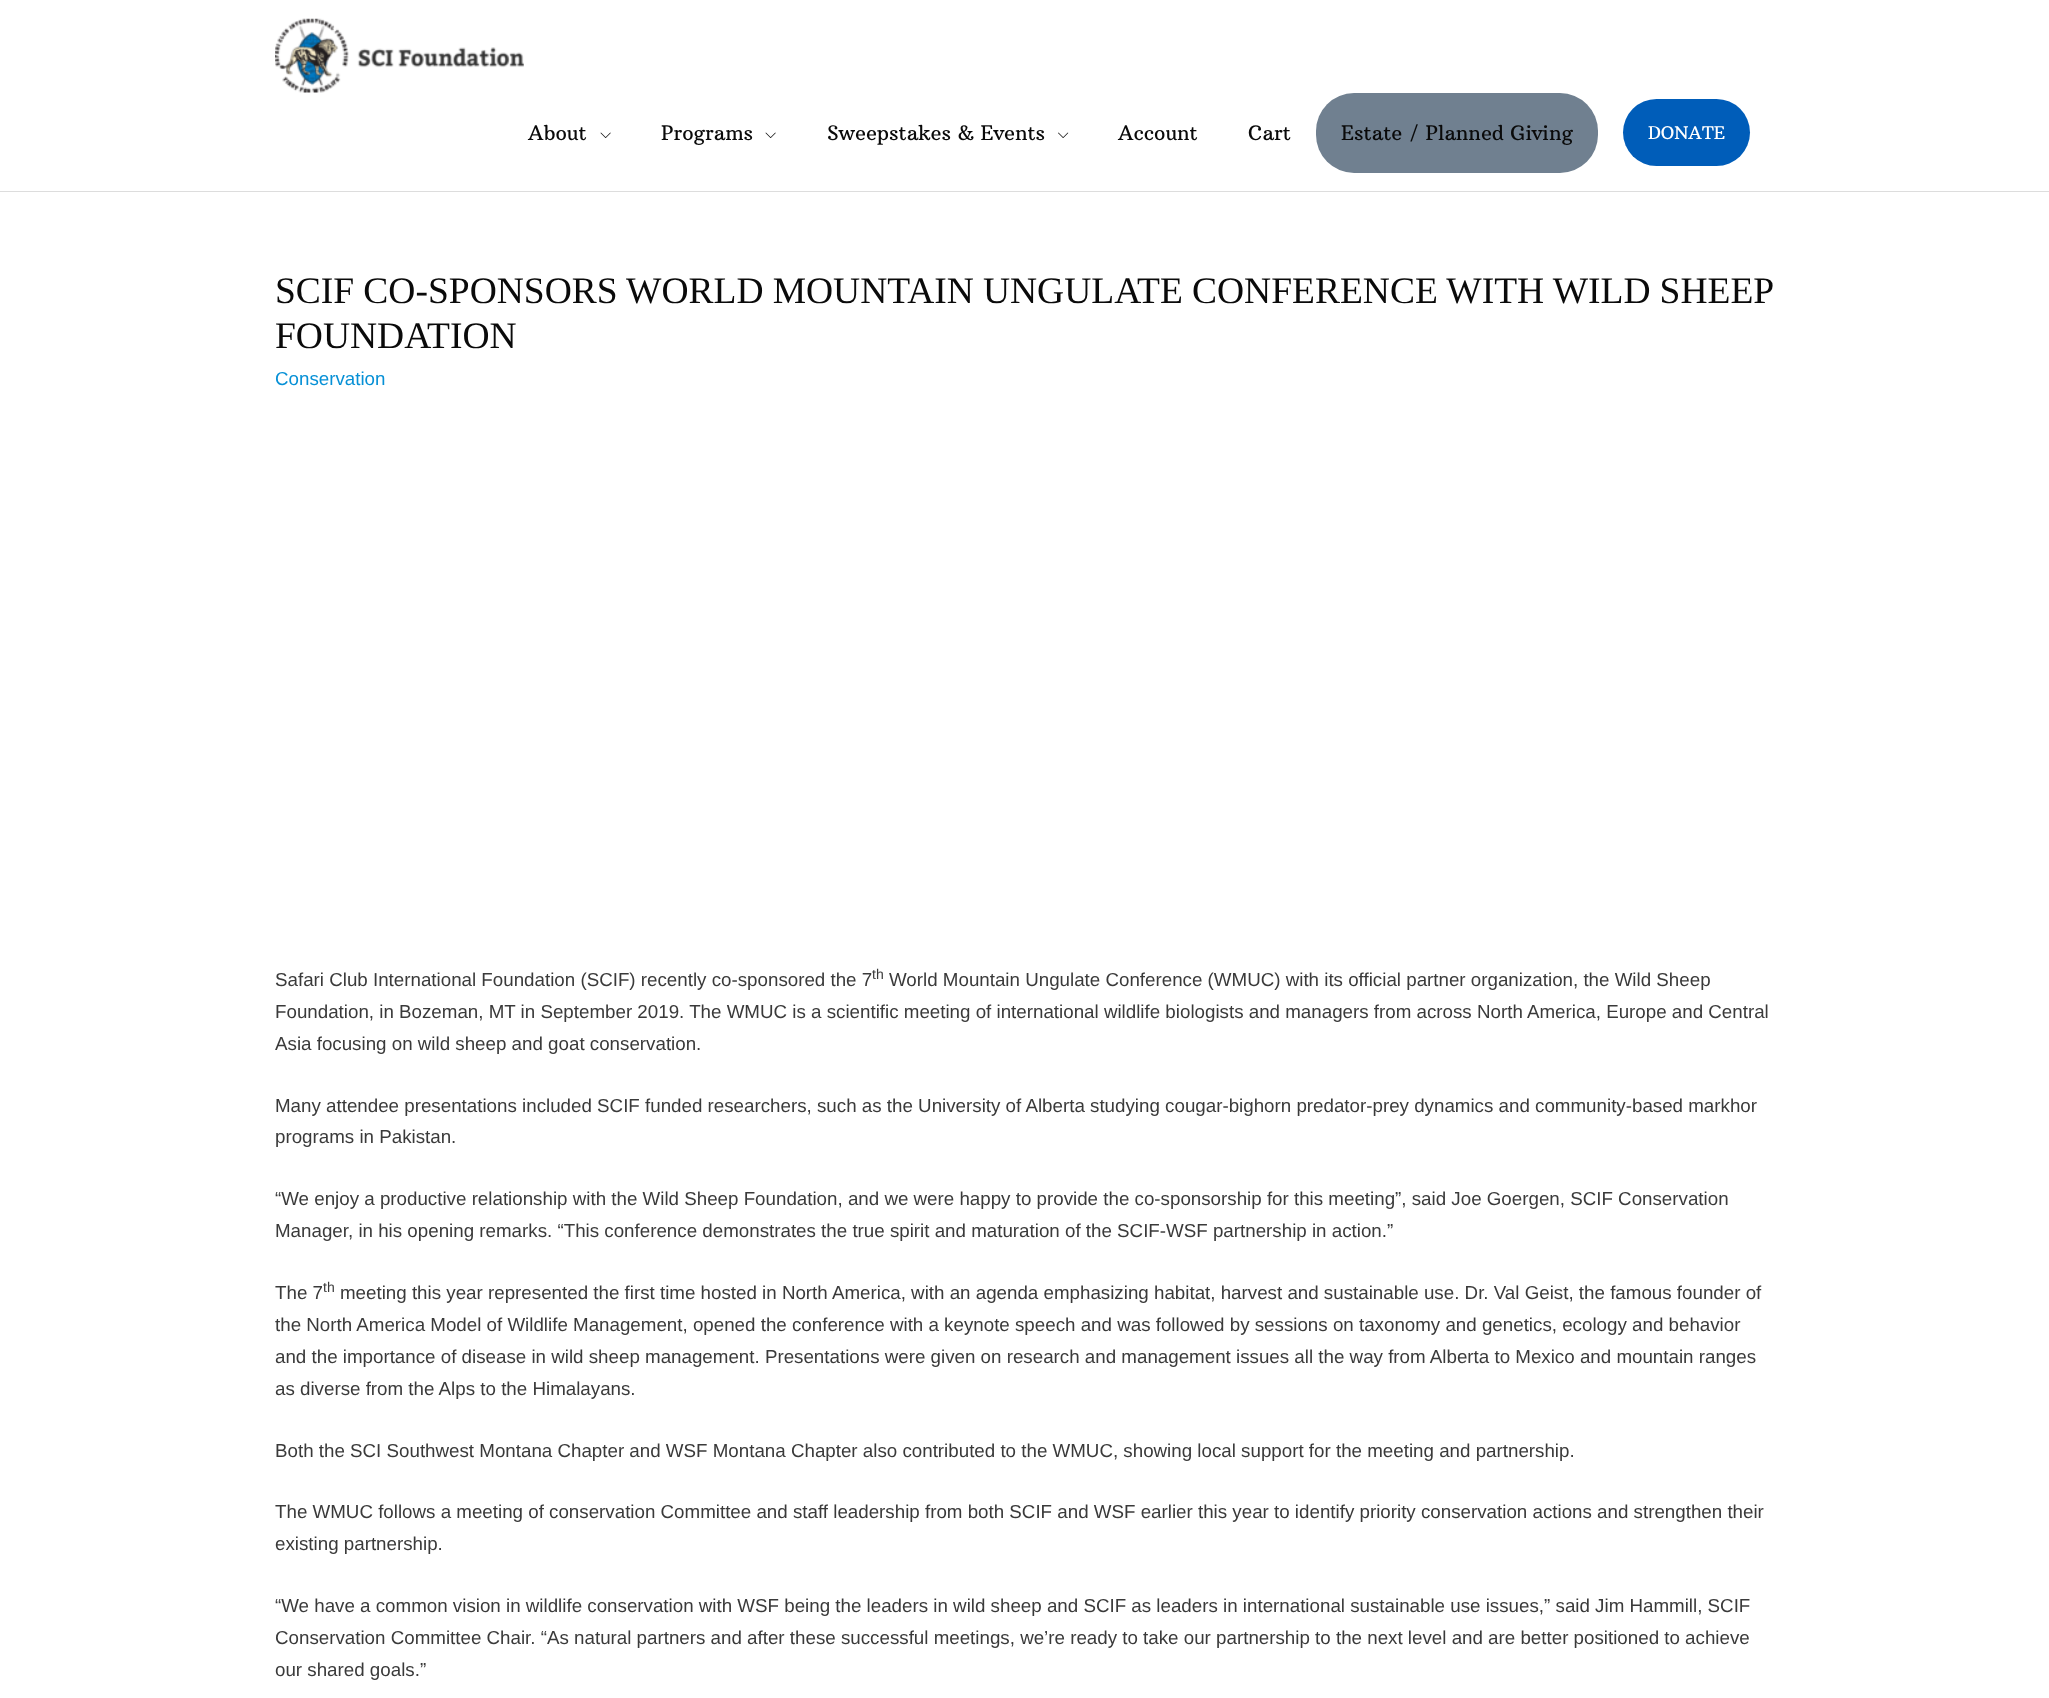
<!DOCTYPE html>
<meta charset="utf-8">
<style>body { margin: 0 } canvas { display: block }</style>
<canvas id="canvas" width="2049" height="1698"></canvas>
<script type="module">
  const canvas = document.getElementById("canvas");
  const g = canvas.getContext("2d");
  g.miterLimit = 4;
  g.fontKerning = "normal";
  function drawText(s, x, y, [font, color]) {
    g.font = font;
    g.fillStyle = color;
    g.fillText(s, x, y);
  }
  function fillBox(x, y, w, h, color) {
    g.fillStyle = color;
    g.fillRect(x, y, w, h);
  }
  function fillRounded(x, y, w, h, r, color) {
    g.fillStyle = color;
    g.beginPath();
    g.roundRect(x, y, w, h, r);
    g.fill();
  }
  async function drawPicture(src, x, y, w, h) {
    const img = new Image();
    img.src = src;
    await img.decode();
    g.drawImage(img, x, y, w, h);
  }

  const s1 = ["20px Arbutus Slab", "#0A0A0A"];
  const s2 = ["17.5px Arbutus Slab", "#FFFFFF"];
  const s3 = ["37.5px Liberation Serif", "#0A0A0A"];
  const s4 = ["18.75px Liberation Sans", "#0690D6"];
  const s5 = ["18.75px Liberation Sans", "#3A3A3A"];
  const s6 = ["14px Liberation Sans", "#3A3A3A"];

  fillBox(0, 0, 2049, 1698, "#FFFFFF");
  fillBox(0, 191, 2049, 1, "#DDDDDD");
  await drawPicture("pic1.png", 275, 18, 249, 75);
  drawText("About", 528, 140, s1);
  await drawPicture("pic2.png", 600, 132, 11, 6);
  drawText("Programs", 661, 140, s1);
  await drawPicture("pic2.png", 765, 132, 11, 6);
  drawText("Sweepstakes & Events", 827, 140, s1);
  await drawPicture("pic3.png", 1058, 132, 11, 6);
  drawText("Account", 1118, 140, s1);
  drawText("Cart", 1248, 140, s1);
  fillRounded(1316, 93, 282, 80, 38, "#708090");
  drawText("Estate / Planned Giving", 1341, 140, s1);
  fillRounded(1623, 99, 127, 67, 33.5, "#005DB9");
  drawText("DONATE", 1648, 139, s2);
  g.wordSpacing = "-0.25px";
  drawText("SCIF CO-SPONSORS WORLD MOUNTAIN UNGULATE CONFERENCE WITH WILD SHEEP", 275, 303, s3);
  g.wordSpacing = "0px";
  drawText("FOUNDATION", 275, 348, s3);
  drawText("Conservation", 275, 385, s4);
  drawText("Safari Club International Foundation (SCIF) recently co-sponsored the 7", 275, 986, s5);
  drawText("th", 872, 979, s6);
  drawText("World Mountain Ungulate Conference (WMUC) with its official partner organization, the Wild Sheep", 889, 986, s5);
  drawText("Foundation, in Bozeman, MT in September 2019. The WMUC is a scientific meeting of international wildlife biologists and managers from across North America, Europe and Central", 275, 1018, s5);
  drawText("Asia focusing on wild sheep and goat conservation.", 275, 1050, s5);
  drawText("Many attendee presentations included SCIF funded researchers, such as the University of Alberta studying cougar-bighorn predator-prey dynamics and community-based markhor", 275, 1112, s5);
  drawText("programs in Pakistan.", 275, 1143, s5);
  drawText("“We enjoy a productive relationship with the Wild Sheep Foundation, and we were happy to provide the co-sponsorship for this meeting”, said Joe Goergen, SCIF Conservation", 275, 1205, s5);
  drawText("Manager, in his opening remarks. “This conference demonstrates the true spirit and maturation of the SCIF-WSF partnership in action.”", 275, 1237, s5);
  drawText("The 7", 275, 1299, s5);
  drawText("th", 323, 1292, s6);
  drawText("meeting this year represented the first time hosted in North America, with an agenda emphasizing habitat, harvest and sustainable use. Dr. Val Geist, the famous founder of", 340, 1299, s5);
  drawText("the North America Model of Wildlife Management, opened the conference with a keynote speech and was followed by sessions on taxonomy and genetics, ecology and behavior", 275, 1331, s5);
  drawText("and the importance of disease in wild sheep management. Presentations were given on research and management issues all the way from Alberta to Mexico and mountain ranges", 275, 1363, s5);
  drawText("as diverse from the Alps to the Himalayans.", 275, 1395, s5);
  drawText("Both the SCI Southwest Montana Chapter and WSF Montana Chapter also contributed to the WMUC, showing local support for the meeting and partnership.", 275, 1457, s5);
  drawText("The WMUC follows a meeting of conservation Committee and staff leadership from both SCIF and WSF earlier this year to identify priority conservation actions and strengthen their", 275, 1518, s5);
  drawText("existing partnership.", 275, 1550, s5);
  drawText("“We have a common vision in wildlife conservation with WSF being the leaders in wild sheep and SCIF as leaders in international sustainable use issues,” said Jim Hammill, SCIF", 275, 1612, s5);
  drawText("Conservation Committee Chair. “As natural partners and after these successful meetings, we’re ready to take our partnership to the next level and are better positioned to achieve", 275, 1644, s5);
  drawText("our shared goals.”", 275, 1676, s5);
</script>
